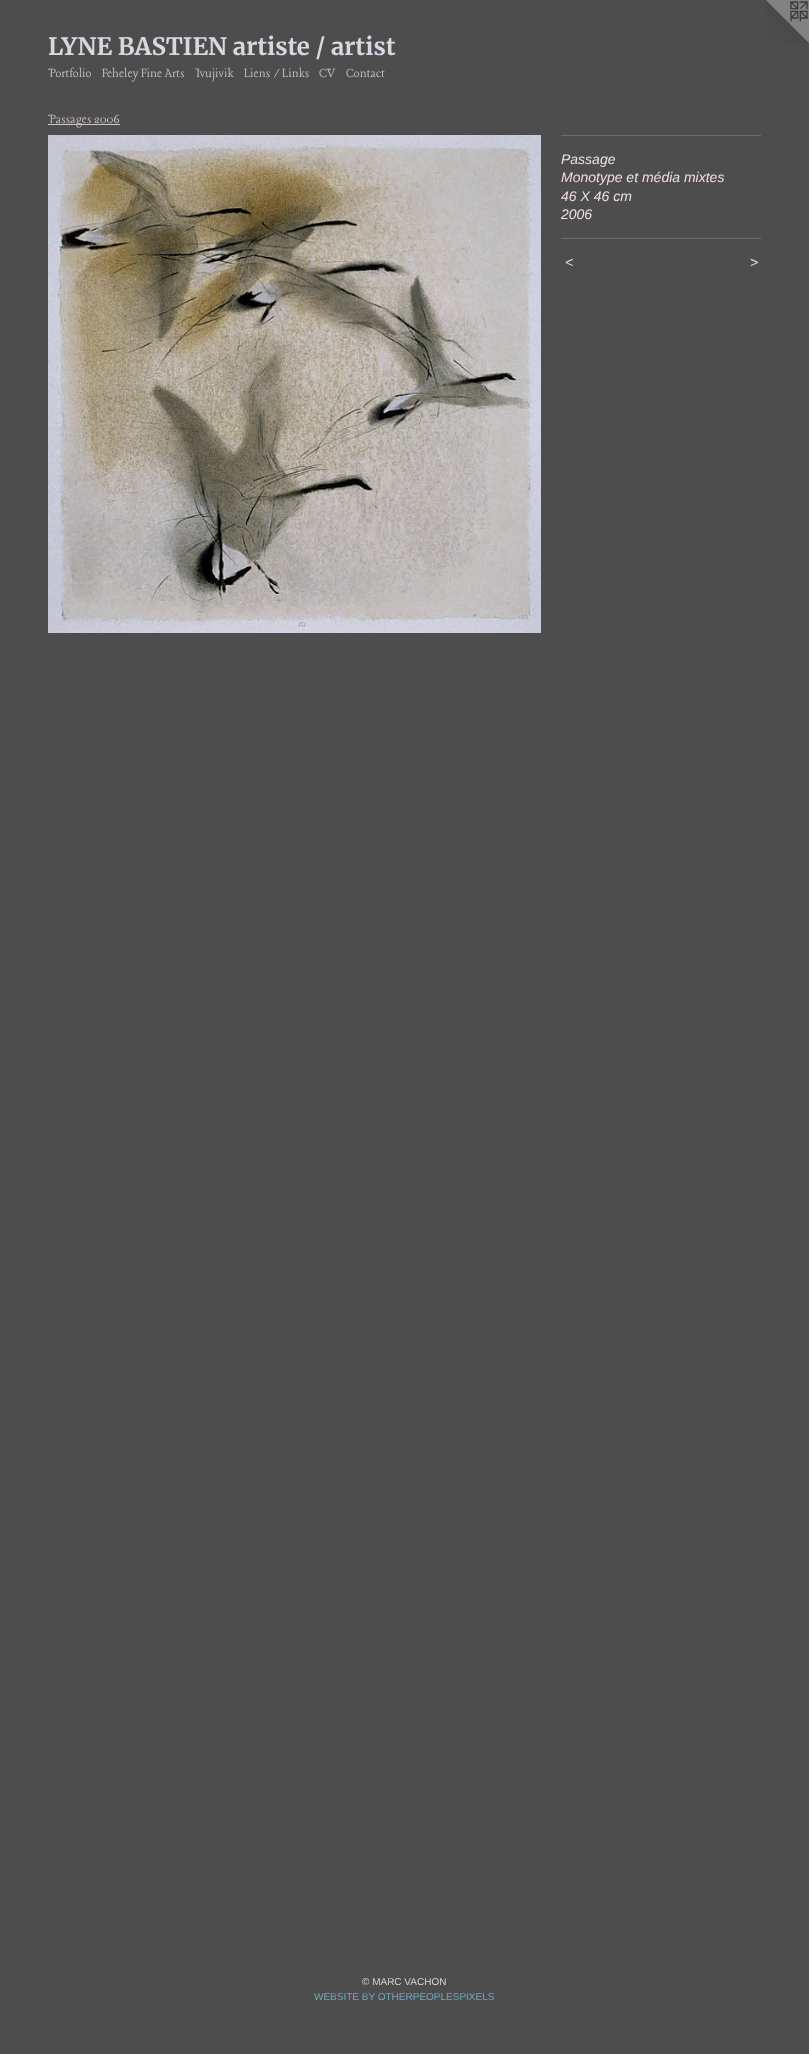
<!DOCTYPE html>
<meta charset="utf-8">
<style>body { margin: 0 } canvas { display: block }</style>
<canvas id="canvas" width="809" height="2054"></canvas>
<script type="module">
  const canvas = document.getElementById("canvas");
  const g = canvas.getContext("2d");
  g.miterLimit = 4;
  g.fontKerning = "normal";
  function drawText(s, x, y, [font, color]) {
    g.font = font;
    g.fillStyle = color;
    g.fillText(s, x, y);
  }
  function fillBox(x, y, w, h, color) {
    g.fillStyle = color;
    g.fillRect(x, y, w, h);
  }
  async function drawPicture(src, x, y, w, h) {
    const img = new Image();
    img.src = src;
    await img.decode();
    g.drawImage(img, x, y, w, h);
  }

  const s1 = ["300 24px Merriweather", "#D7D9E0"];
  const s2 = ["14px Lancelot", "#CEC5C5"];
  const s3 = ["italic 14px Liberation Sans", "#F1DFDF"];
  const s4 = ["10px Liberation Sans", "#D6D6D6"];
  const s5 = ["10px Liberation Sans", "#70A8C0"];

  fillBox(0, 0, 809, 2054, "#4D4D4D");
  await drawPicture("pic1.png", 766, 0, 43, 43);
  drawText("LYNE BASTIEN artiste / artist", 48, 55, s1);
  drawText("Portfolio", 48, 77, s2);
  drawText("Feheley Fine Arts", 102, 77, s2);
  drawText("Ivujivik", 195, 77, s2);
  drawText("Liens /Links", 244, 77, s2);
  drawText("CV", 319, 77, s2);
  drawText("Contact", 346, 77, s2);
  fillBox(48, 124, 72, 1, "#CEC5C5");
  drawText("Passages 2006", 48, 123, s2);
  await drawPicture("pic2.png", 48, 135, 493, 498);
  fillBox(561, 135, 200, 1, "#6E6A6A");
  drawText("Passage", 561, 164, s3);
  drawText("Monotype et média mixtes", 561, 182, s3);
  drawText("46 X 46 cm", 561, 201, s3);
  drawText("2006", 561, 219, s3);
  fillBox(561, 238, 200, 1, "#6E6A6A");
  g.letterSpacing = "1px";
  drawText("<", 565, 267, s3);
  drawText(">", 750, 267, s3);
  g.letterSpacing = "0px";
  drawText("© MARC VACHON", 362, 1985, s4);
  drawText("WEBSITE BY OTHERPEOPLESPIXELS", 314, 2000, s5);
</script>
